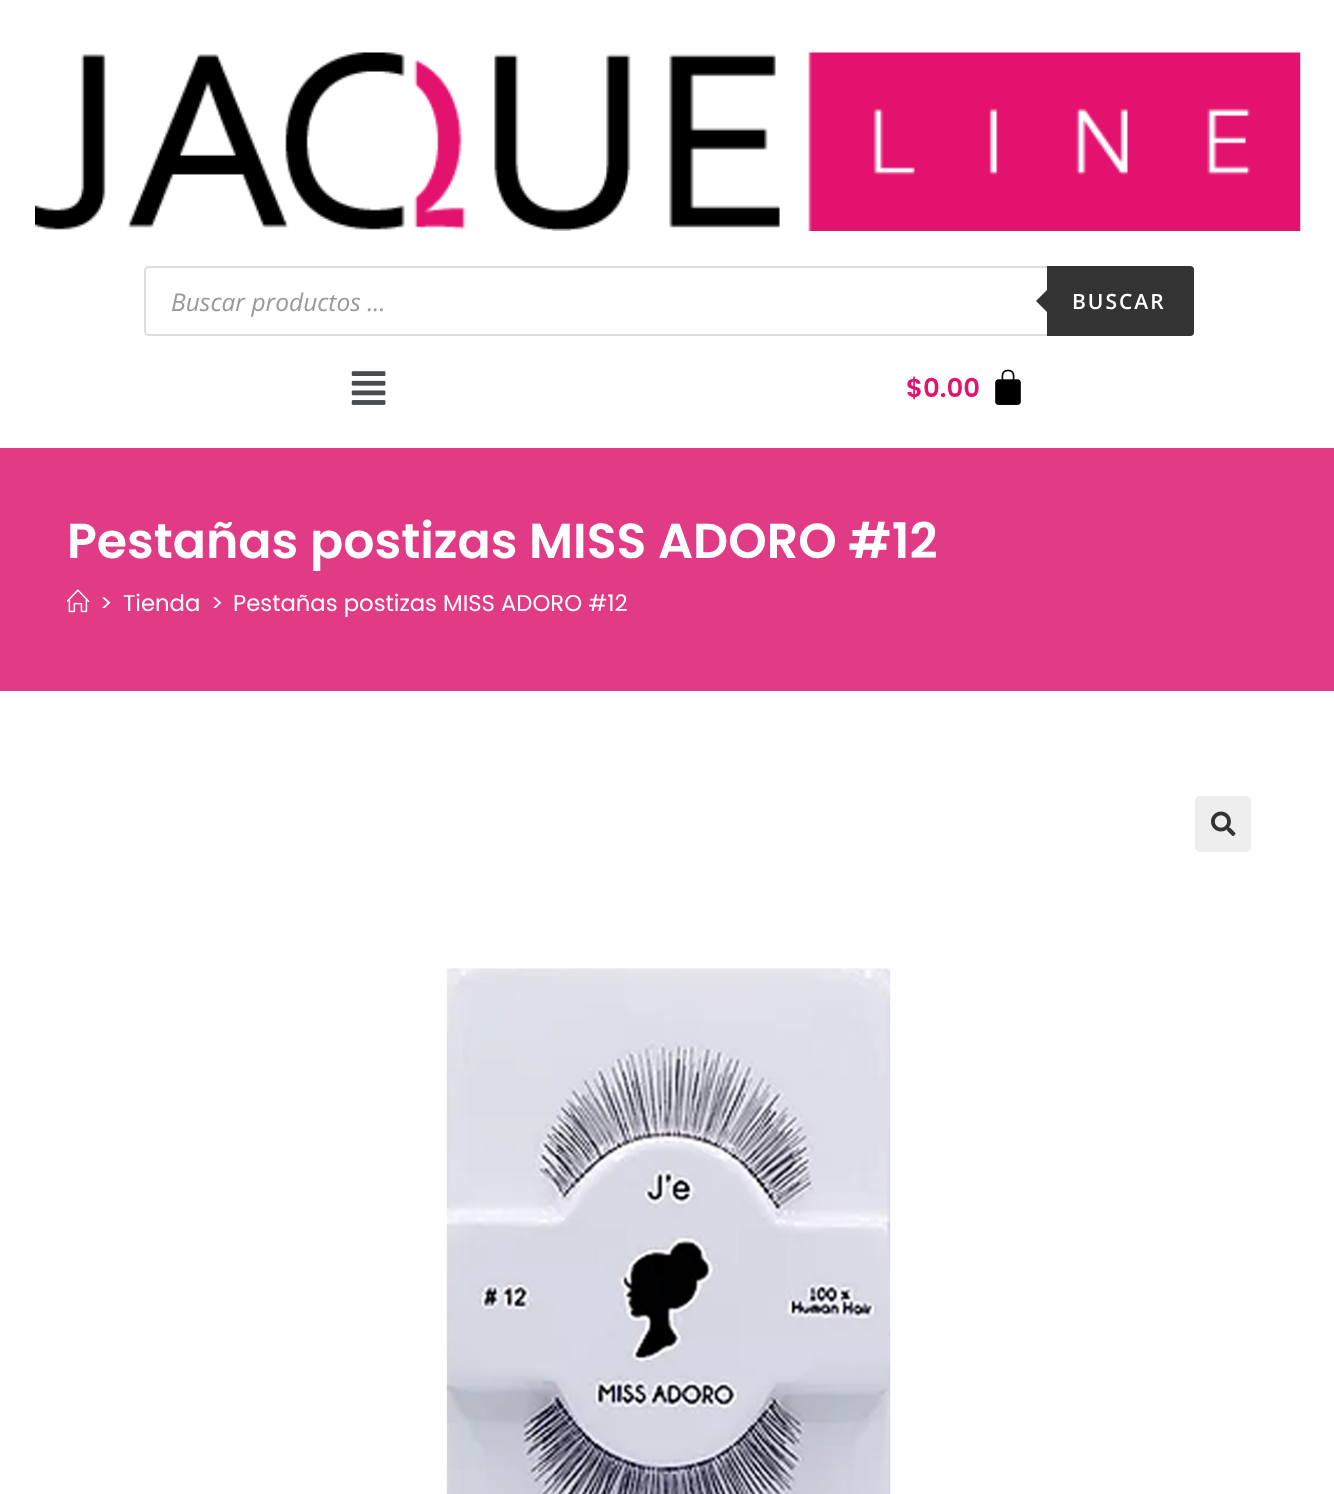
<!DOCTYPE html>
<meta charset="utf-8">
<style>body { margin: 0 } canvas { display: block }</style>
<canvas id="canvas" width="1334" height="1494"></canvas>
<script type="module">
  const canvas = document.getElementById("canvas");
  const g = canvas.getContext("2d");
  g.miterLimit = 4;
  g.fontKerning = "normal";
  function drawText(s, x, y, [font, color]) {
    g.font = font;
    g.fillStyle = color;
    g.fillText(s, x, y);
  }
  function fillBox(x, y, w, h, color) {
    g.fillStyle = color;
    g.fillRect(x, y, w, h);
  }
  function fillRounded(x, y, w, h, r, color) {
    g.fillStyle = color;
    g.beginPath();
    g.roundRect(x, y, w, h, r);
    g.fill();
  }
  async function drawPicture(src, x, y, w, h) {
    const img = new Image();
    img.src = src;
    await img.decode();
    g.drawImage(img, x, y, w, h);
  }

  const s1 = ["italic 24.5px Open Sans", "#999999"];
  const s2 = ["600 21px Open Sans", "#FFFFFF"];
  const s3 = ["600 26px Poppins", "#E2126E"];
  const s4 = ["600 49px Poppins", "#FFFFFF"];
  const s5 = ["22.75px Poppins", "#FFFFFF"];

  fillBox(0, 0, 1334, 1494, "#FFFFFF");
  await drawPicture("pic1.png", 35, 52, 1266, 179);
  g.beginPath();
  g.roundRect(145, 267, 1048, 68, 4);
  g.strokeStyle = "#DDDDDD";
  g.lineWidth = 2;
  g.stroke();
  drawText("Buscar productos ...", 171, 311, s1);
  g.fillStyle = "#333333";
  g.beginPath();
  g.roundRect(1047, 266, 147, 70, [0, 4, 4, 0]);
  g.fill();
  g.beginPath();
  g.moveTo(1050, 287);
  g.lineTo(1050, 315);
  g.lineTo(1036, 301);
  g.closePath();
  g.fill();
  g.letterSpacing = "2px";
  drawText("BUSCAR", 1072, 309, s2);
  await drawPicture("pic2.png", 351, 371, 35, 34);
  g.letterSpacing = "0px";
  drawText("$0.00", 906, 397, s3);
  await drawPicture("pic3.png", 995, 369, 26, 36);
  fillBox(0, 448, 1334, 243, "#E23B86");
  drawText("Pestañas postizas MISS ADORO #12", 67, 558, s4);
  await drawPicture("pic4.png", 67, 589, 23, 24);
  drawText(">", 100, 611, s5);
  drawText("Tienda", 123, 611, s5);
  drawText(">", 211, 611, s5);
  drawText("Pestañas postizas MISS ADORO #12", 233, 611, s5);
  fillRounded(1195, 796, 56, 56, 5, "#EEEEEE");
  await drawPicture("pic5.png", 1211, 811, 25, 25);
  await drawPicture("pic6.png", 446, 968, 445, 526);
</script>
